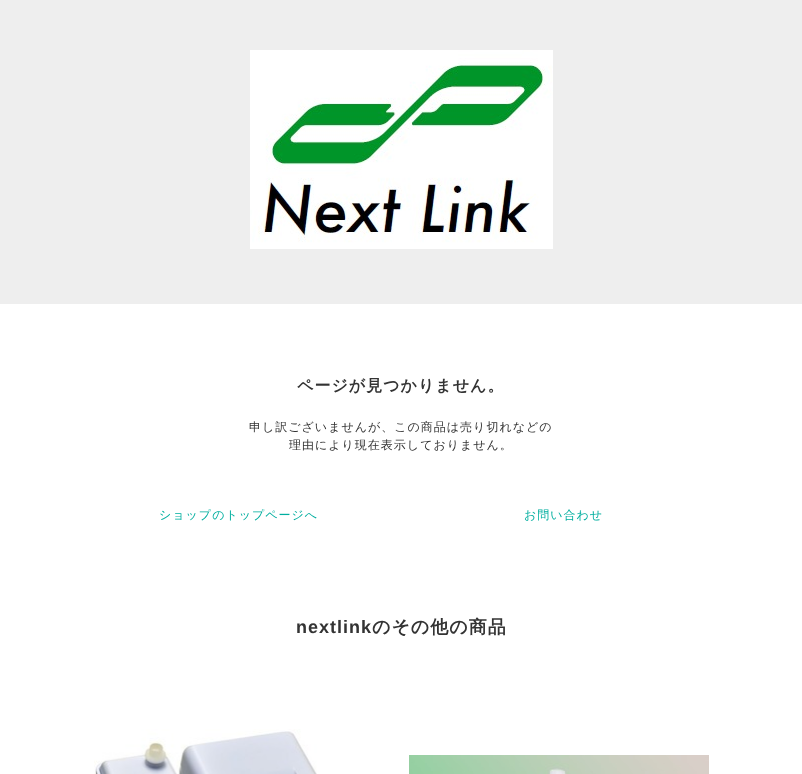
<!DOCTYPE html>
<meta charset="utf-8">
<style>body { margin: 0 } canvas { display: block }</style>
<canvas id="canvas" width="802" height="774"></canvas>
<script type="module">
  const canvas = document.getElementById("canvas");
  const g = canvas.getContext("2d");
  g.miterLimit = 4;
  g.fontKerning = "normal";
  function drawText(s, x, y, [font, color]) {
    g.font = font;
    g.fillStyle = color;
    g.fillText(s, x, y);
  }
  function fillBox(x, y, w, h, color) {
    g.fillStyle = color;
    g.fillRect(x, y, w, h);
  }
  async function drawPicture(src, x, y, w, h) {
    const img = new Image();
    img.src = src;
    await img.decode();
    g.drawImage(img, x, y, w, h);
  }

  const s1 = ["bold 16px WenQuanYi Zen Hei", "#333333"];
  const s2 = ["500 12px WenQuanYi Zen Hei", "#333333"];
  const s3 = ["500 12px WenQuanYi Zen Hei", "#00AE9F"];
  const s4 = ["bold 18px Liberation Sans", "#333333"];
  const s5 = ["bold 18px WenQuanYi Zen Hei", "#333333"];

  fillBox(0, 0, 802, 774, "#EEEEEE");
  await drawPicture("pic1.png", 250, 50, 303, 199);
  fillBox(0, 304, 802, 470, "#FFFFFF");
  g.letterSpacing = "1px";
  drawText("ページが見つかりません。", 297, 391, s1);
  drawText("申し訳ございませんが、この商品は売り切れなどの", 249, 431, s2);
  drawText("理由により現在表示しておりません。", 289, 449, s2);
  drawText("ショップのトップページへ", 159, 519, s3);
  drawText("お問い合わせ", 524, 519, s3);
  drawText("nextlink", 296, 633, s4);
  drawText("のその他の商品", 372, 633, s5);
  await drawPicture("pic2.png", 94, 729, 223, 45);
  await drawPicture("pic3.png", 409, 755, 300, 19);
</script>
